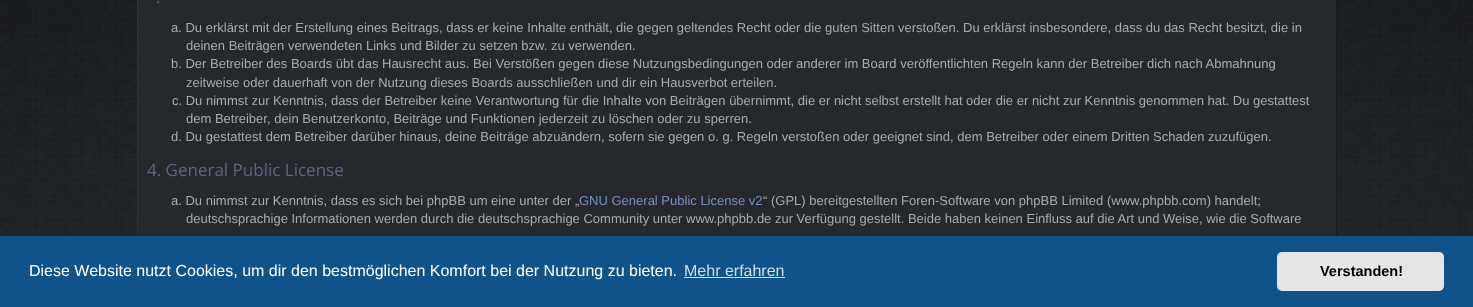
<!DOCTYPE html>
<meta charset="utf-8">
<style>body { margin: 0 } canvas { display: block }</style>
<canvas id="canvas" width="1473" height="307"></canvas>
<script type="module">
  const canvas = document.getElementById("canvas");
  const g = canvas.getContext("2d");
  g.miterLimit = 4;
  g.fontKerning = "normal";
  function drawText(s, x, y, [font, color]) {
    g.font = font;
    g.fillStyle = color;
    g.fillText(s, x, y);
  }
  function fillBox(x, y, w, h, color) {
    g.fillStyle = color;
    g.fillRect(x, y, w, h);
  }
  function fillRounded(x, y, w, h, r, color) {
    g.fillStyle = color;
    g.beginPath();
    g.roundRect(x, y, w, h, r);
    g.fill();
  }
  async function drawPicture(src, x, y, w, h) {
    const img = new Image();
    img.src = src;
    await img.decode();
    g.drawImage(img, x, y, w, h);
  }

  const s1 = ["17px Open Sans", "#57687F"];
  const s2 = ["13px Liberation Sans", "#AAAAAA"];
  const s3 = ["13px Liberation Sans", "#7692BC"];
  const s4 = ["16px Liberation Sans", "#FFFFFF"];
  const s5 = ["16px Liberation Sans", "#CFDDE8"];
  const s6 = ["bold 14.5px Liberation Sans", "#000000"];

  fillBox(0, 0, 1473, 307, "#1D2127");
  await drawPicture("pic1.png", 0, 0, 1473, 236);
  fillBox(138, 0, 1198, 236, "#25282C");
  fillBox(1336, 0, 1, 236, "#17191B");
  fillBox(137, 0, 1, 236, "#2E3237");
  drawText(".", 156, 3, s1);
  drawText("a. Du erklärst mit der Erstellung eines Beitrags, dass er keine Inhalte enthält, die gegen geltendes Recht oder die guten Sitten verstoßen. Du erklärst insbesondere, dass du das Recht besitzt, die in", 171, 32, s2);
  drawText("deinen Beiträgen verwendeten Links und Bilder zu setzen bzw. zu verwenden.", 186, 50, s2);
  drawText("b. Der Betreiber des Boards übt das Hausrecht aus. Bei Verstößen gegen diese Nutzungsbedingungen oder anderer im Board veröffentlichten Regeln kann der Betreiber dich nach Abmahnung", 171, 68, s2);
  drawText("zeitweise oder dauerhaft von der Nutzung dieses Boards ausschließen und dir ein Hausverbot erteilen.", 186, 87, s2);
  drawText("c. Du nimmst zur Kenntnis, dass der Betreiber keine Verantwortung für die Inhalte von Beiträgen übernimmt, die er nicht selbst erstellt hat oder die er nicht zur Kenntnis genommen hat. Du gestattest", 172, 105, s2);
  drawText("dem Betreiber, dein Benutzerkonto, Beiträge und Funktionen jederzeit zu löschen oder zu sperren.", 186, 123, s2);
  drawText("d. Du gestattest dem Betreiber darüber hinaus, deine Beiträge abzuändern, sofern sie gegen o. g. Regeln verstoßen oder geeignet sind, dem Betreiber oder einem Dritten Schaden zuzufügen.", 171, 141, s2);
  drawText("4. General Public License", 147, 176, s1);
  drawText("a. Du nimmst zur Kenntnis, dass es sich bei phpBB um eine unter der „", 171, 205, s2);
  drawText("GNU General Public License v2", 579, 205, s3);
  drawText("“ (GPL) bereitgestellten Foren-Software von phpBB Limited (www.phpbb.com) handelt;", 763, 205, s2);
  drawText("deutschsprachige Informationen werden durch die deutschsprachige Community unter www.phpbb.de zur Verfügung gestellt. Beide haben keinen Einfluss auf die Art und Weise, wie die Software", 186, 223, s2);
  fillBox(0, 236, 1473, 71, "#0F538A");
  drawText("Diese Website nutzt Cookies, um dir den bestmöglichen Komfort bei der Nutzung zu bieten.", 29, 276, s4);
  drawText("Mehr erfahren", 684, 276, s5);
  fillBox(684, 277, 101, 1, "#CFDDE8");
  fillRounded(1277, 252, 167, 39, 5, "#E5E5E5");
  drawText("Verstanden!", 1320, 276, s6);
</script>
